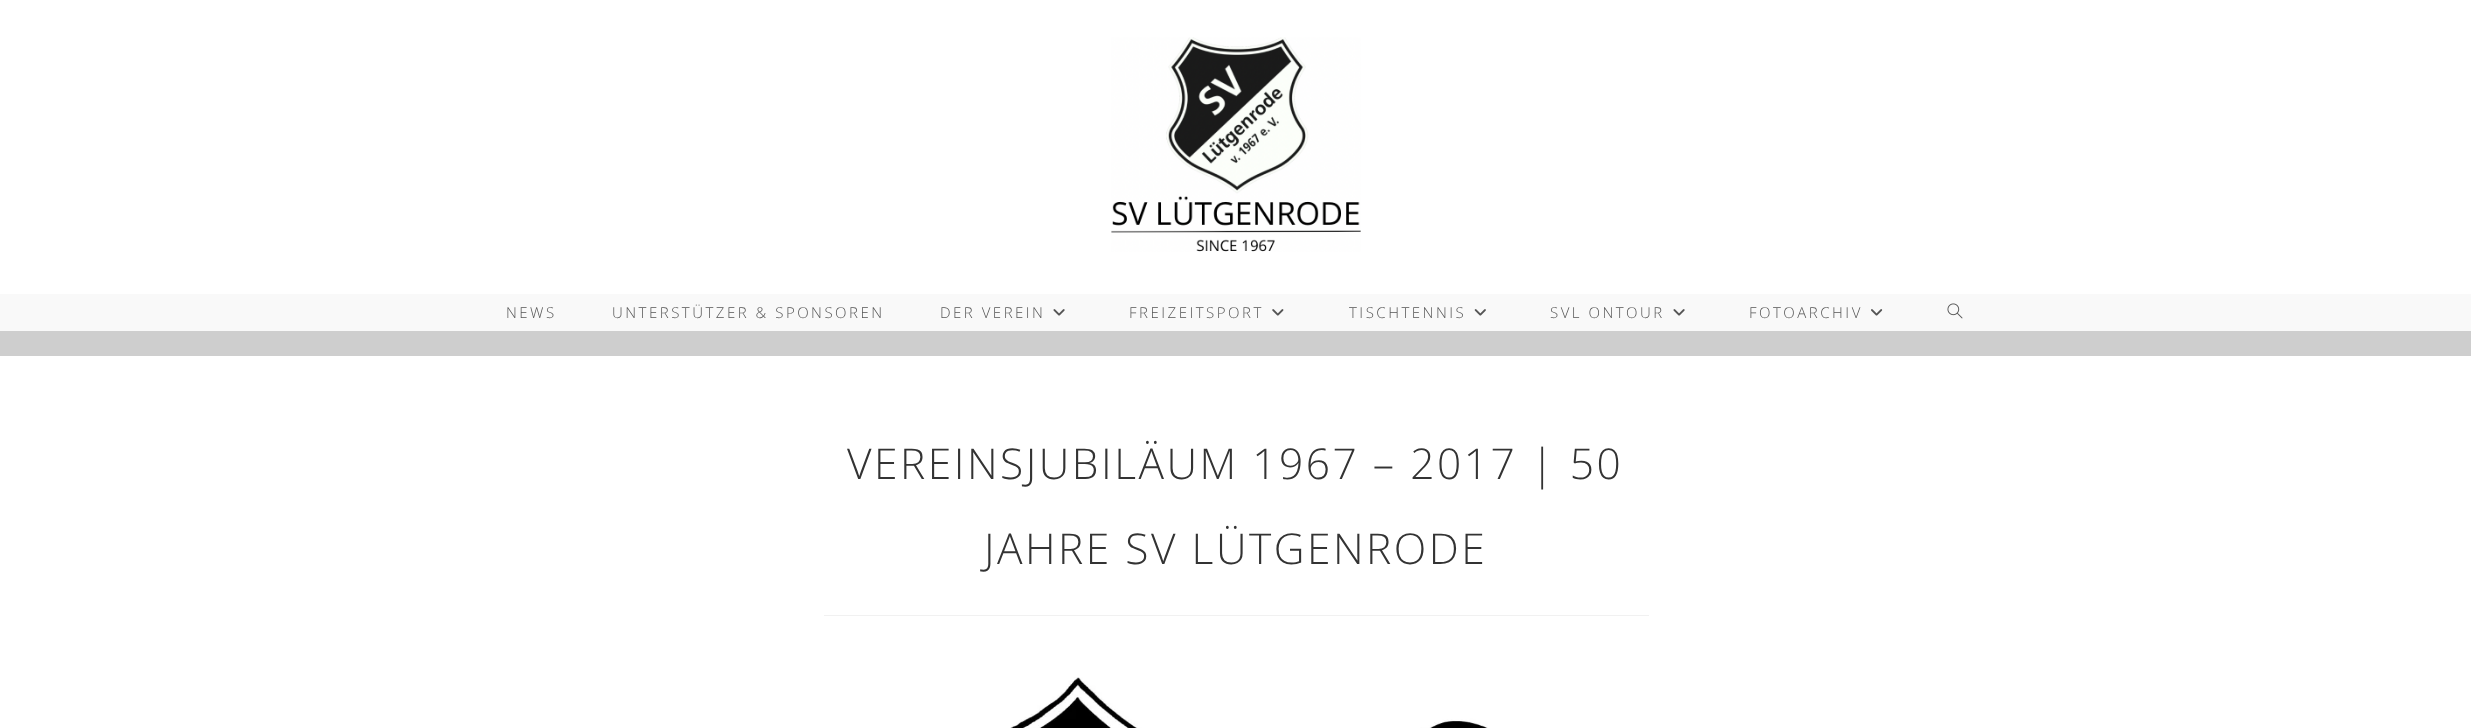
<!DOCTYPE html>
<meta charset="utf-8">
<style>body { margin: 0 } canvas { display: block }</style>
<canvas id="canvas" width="2471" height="728"></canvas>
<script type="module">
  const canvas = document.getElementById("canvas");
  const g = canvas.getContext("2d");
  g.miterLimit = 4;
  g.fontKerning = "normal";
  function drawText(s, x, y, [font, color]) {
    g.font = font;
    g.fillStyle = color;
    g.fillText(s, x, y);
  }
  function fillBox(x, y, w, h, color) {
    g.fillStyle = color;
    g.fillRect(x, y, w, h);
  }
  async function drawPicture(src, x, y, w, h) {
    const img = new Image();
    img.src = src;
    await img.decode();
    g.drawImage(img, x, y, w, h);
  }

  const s1 = ["300 15px Open Sans", "#555555"];
  const s2 = ["300 42.5px Open Sans", "#333333"];

  fillBox(0, 0, 2471, 728, "#CECECE");
  fillBox(0, 0, 2471, 294, "#FFFFFF");
  await drawPicture("pic1.png", 1111, 37, 250, 215);
  fillBox(0, 294, 2471, 37, "#F9F9F9");
  g.letterSpacing = "2.5px";
  drawText("NEWS", 506, 318, s1);
  drawText("UNTERSTÜTZER & SPONSOREN", 612, 318, s1);
  drawText("DER VEREIN", 940, 318, s1);
  await drawPicture("pic2.png", 1053, 309, 12, 7);
  drawText("FREIZEITSPORT", 1129, 318, s1);
  await drawPicture("pic3.png", 1272, 309, 12, 7);
  drawText("TISCHTENNIS", 1349, 318, s1);
  await drawPicture("pic4.png", 1474, 309, 12, 7);
  drawText("SVL ONTOUR", 1550, 318, s1);
  await drawPicture("pic2.png", 1673, 309, 12, 7);
  drawText("FOTOARCHIV", 1749, 318, s1);
  await drawPicture("pic5.png", 1871, 309, 12, 7);
  await drawPicture("pic6.png", 1947, 303, 16, 16);
  fillBox(0, 356, 2471, 372, "#FFFFFF");
  fillBox(824, 615, 825, 1, "#F1F1F1");
  drawText("VEREINSJUBILÄUM 1967 – 2017 | 50", 847, 479, s2);
  drawText("JAHRE SV LÜTGENRODE", 984, 564, s2);
  await drawPicture("pic7.png", 1010, 677, 478, 51);
</script>
